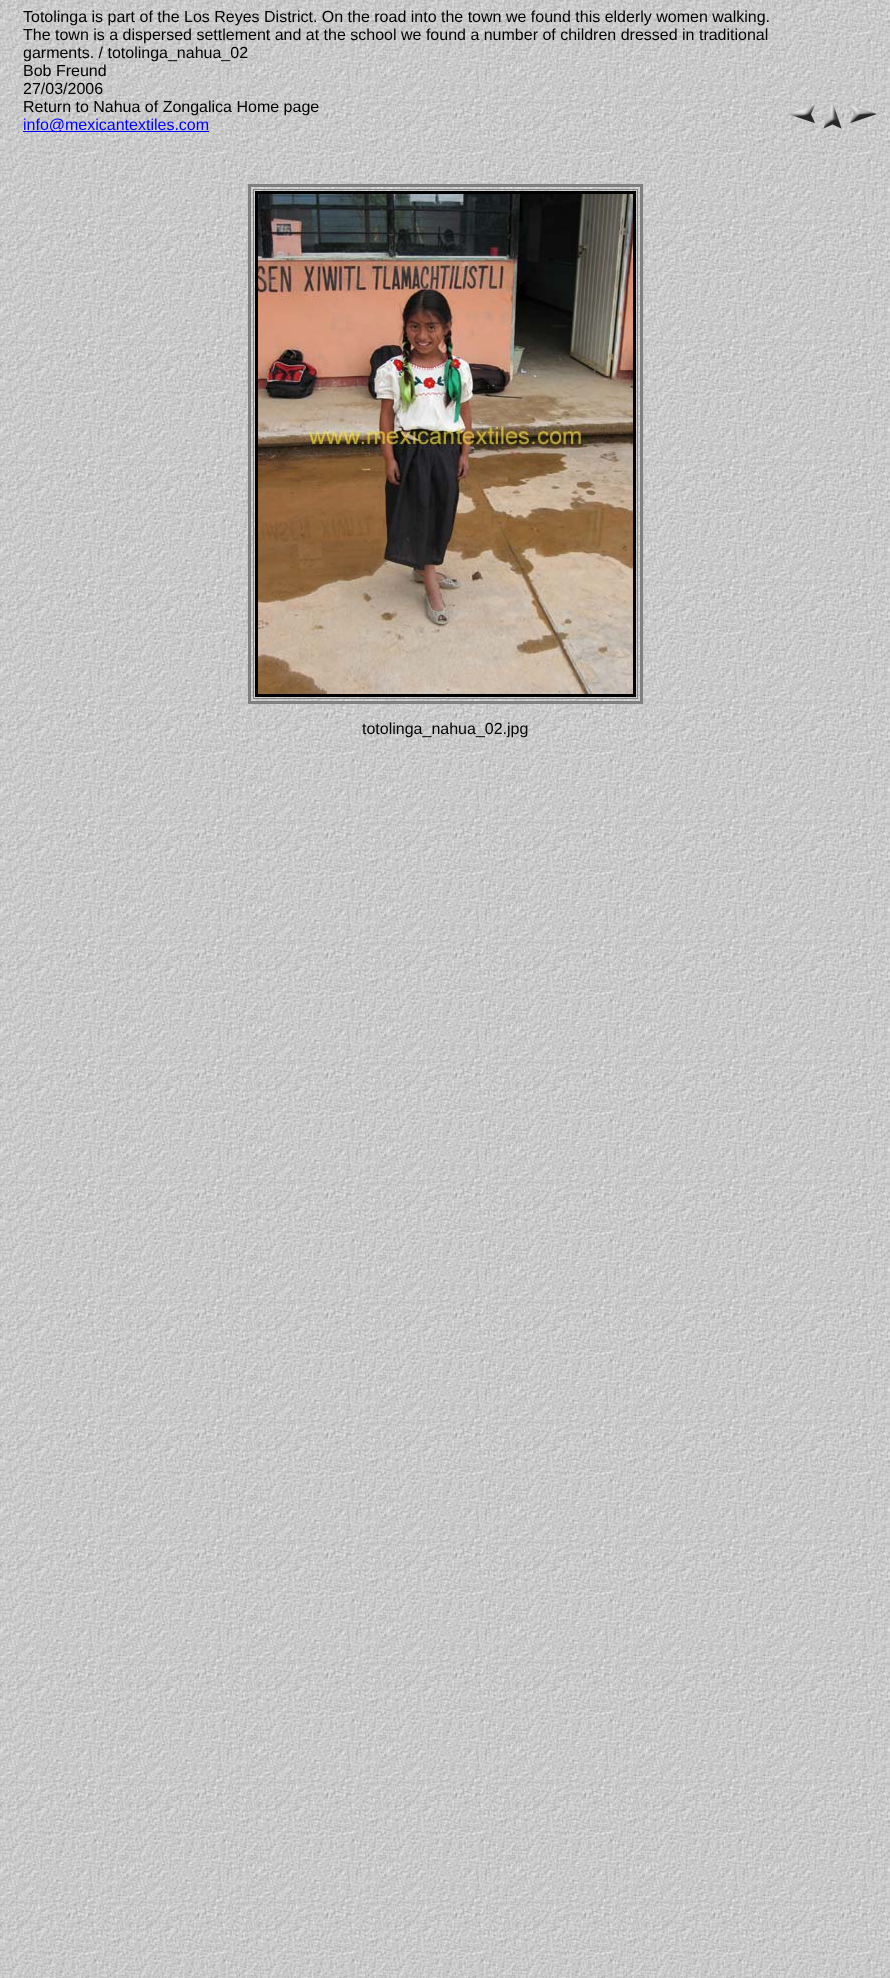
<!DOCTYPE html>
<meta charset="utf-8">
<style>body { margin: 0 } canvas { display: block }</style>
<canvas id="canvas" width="890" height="1978"></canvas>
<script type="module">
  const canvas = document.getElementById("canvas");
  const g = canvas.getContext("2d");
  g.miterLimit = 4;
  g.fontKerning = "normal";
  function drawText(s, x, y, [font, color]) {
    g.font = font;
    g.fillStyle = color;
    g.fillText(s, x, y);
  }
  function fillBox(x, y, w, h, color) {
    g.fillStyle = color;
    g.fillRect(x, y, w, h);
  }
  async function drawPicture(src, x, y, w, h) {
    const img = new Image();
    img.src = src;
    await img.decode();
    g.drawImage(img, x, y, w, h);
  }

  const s1 = ["16px Liberation Sans", "#000000"];
  const s2 = ["16px Liberation Sans", "#0000FF"];

  fillBox(0, 0, 890, 1978, "#FFFFFF");
  await drawPicture("pic1.png", 0, 0, 890, 1978);
  drawText("Totolinga is part of the Los Reyes District. On the road into the town we found this elderly women walking.", 23, 22, s1);
  drawText("The town is a dispersed settlement and at the school we found a number of children dressed in traditional", 23, 40, s1);
  drawText("garments. / totolinga_nahua_02", 23, 58, s1);
  drawText("Bob Freund", 23, 76, s1);
  drawText("27/03/2006", 23, 94, s1);
  drawText("Return to Nahua of Zongalica Home page", 23, 112, s1);
  fillBox(23, 131, 186, 1, "#0000FF");
  drawText("info@mexicantextiles.com", 23, 130, s2);
  await drawPicture("pic2.png", 788, 105, 27, 19);
  await drawPicture("pic3.png", 823, 102, 19, 27);
  await drawPicture("pic4.png", 850, 105, 27, 18);
  g.strokeStyle = "#808080";
  g.lineWidth = 3;
  g.strokeRect(249.5, 185.5, 392, 517);
  g.lineWidth = 1;
  g.strokeRect(253.5, 189.5, 384, 509);
  g.strokeStyle = "#000000";
  g.lineWidth = 3;
  g.strokeRect(256.5, 192.5, 378, 503);
  await drawPicture("pic5.png", 258, 194, 375, 500);
  drawText("totolinga_nahua_02.jpg", 362, 734, s1);
</script>
